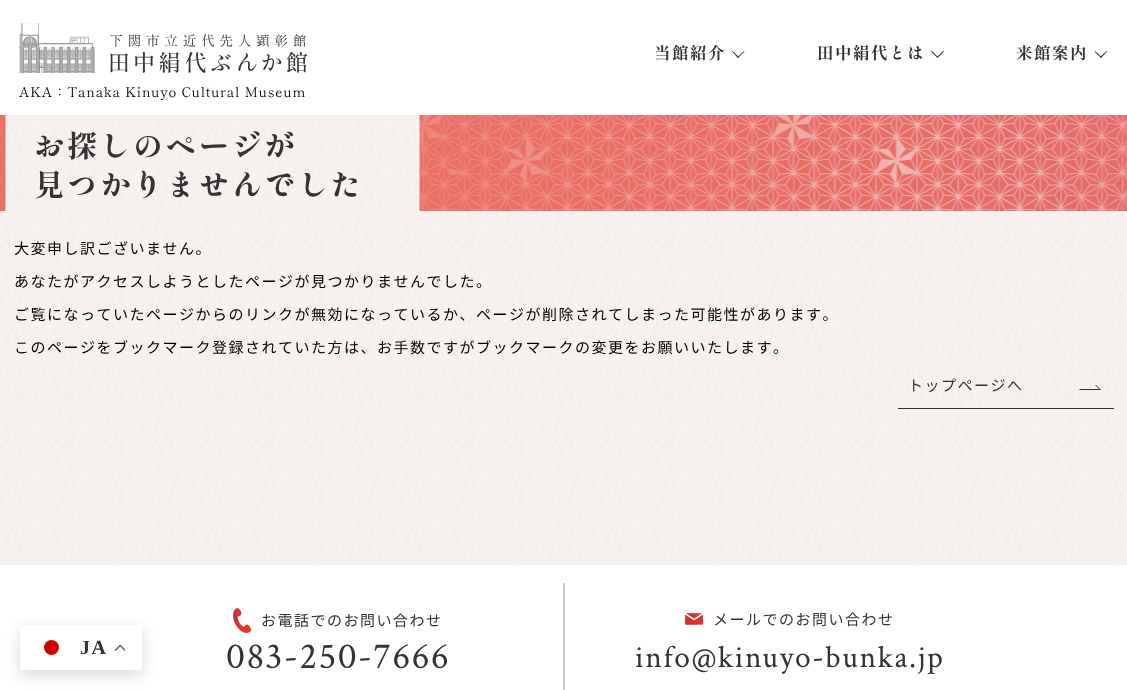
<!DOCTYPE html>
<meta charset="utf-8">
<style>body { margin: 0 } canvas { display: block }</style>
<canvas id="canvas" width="1127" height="690"></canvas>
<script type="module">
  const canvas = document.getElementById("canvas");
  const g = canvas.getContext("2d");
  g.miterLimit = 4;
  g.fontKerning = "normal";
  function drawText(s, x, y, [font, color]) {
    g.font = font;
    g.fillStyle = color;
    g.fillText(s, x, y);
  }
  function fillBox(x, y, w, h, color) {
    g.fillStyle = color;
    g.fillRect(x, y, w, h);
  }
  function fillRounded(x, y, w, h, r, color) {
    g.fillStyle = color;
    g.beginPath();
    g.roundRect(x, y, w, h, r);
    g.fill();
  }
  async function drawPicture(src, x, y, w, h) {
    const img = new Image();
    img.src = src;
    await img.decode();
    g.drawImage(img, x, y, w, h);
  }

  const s1 = ["800 16.5px Shippori Mincho", "#333333"];
  const s2 = ["13.5px Shippori Mincho", "#000000"];
  const s3 = ["800 30px Shippori Mincho", "#333333"];
  const s4 = ["15px 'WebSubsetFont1'", "#000000"];
  const s5 = ["15px 'WebSubsetFont1'", "#333333"];
  const s6 = ["bold 20px Liberation Serif", "#333333"];
  const s7 = ["37.5px Crimson Text", "#333333"];
  const s8 = ["31.5px Crimson Text", "#333333"];

  fillBox(0, 0, 1127, 690, "#FFFFFF");
  await drawPicture("pic1.png", 0, 115, 1127, 450);
  g.letterSpacing = "1.5px";
  drawText("当館紹介", 654, 59, s1);
  g.beginPath();
  g.moveTo(744, 51);
  g.lineTo(744.5, 51.5);
  g.lineTo(738, 58);
  g.lineTo(737.5, 57);
  g.closePath();
  g.fill();
  g.beginPath();
  g.moveTo(732.5, 51);
  g.lineTo(739, 57);
  g.lineTo(738, 58);
  g.lineTo(732, 51.5);
  g.closePath();
  g.fill();
  drawText("田中絹代とは", 817, 59, s1);
  g.beginPath();
  g.moveTo(943, 51);
  g.lineTo(944, 51.5);
  g.lineTo(937.5, 58);
  g.lineTo(937, 57);
  g.closePath();
  g.fill();
  g.beginPath();
  g.moveTo(932, 51);
  g.lineTo(938, 57);
  g.lineTo(937.5, 58);
  g.lineTo(931, 51.5);
  g.closePath();
  g.fill();
  drawText("来館案内", 1016, 59, s1);
  g.beginPath();
  g.moveTo(1106.5, 51);
  g.lineTo(1107, 51.5);
  g.lineTo(1101, 58);
  g.lineTo(1100, 57);
  g.closePath();
  g.fill();
  g.beginPath();
  g.moveTo(1095, 51);
  g.lineTo(1101.5, 57);
  g.lineTo(1101, 58);
  g.lineTo(1094.5, 51.5);
  g.closePath();
  g.fill();
  await drawPicture("pic2.png", 18, 23, 77, 50);
  await drawPicture("pic3.png", 110, 34, 198, 39);
  g.letterSpacing = "0.8px";
  drawText("AKA：Tanaka Kinuyo Cultural Museum", 19, 97, s2);
  await drawPicture("pic4.png", 0, 115, 1127, 96);
  g.letterSpacing = "3px";
  drawText("お探しのページが", 34, 157, s3);
  drawText("見つかりませんでした", 34, 196, s3);
  g.letterSpacing = "1.5px";
  drawText("大変申し訳ございません。", 14, 254, s4);
  drawText("あなたがアクセスしようとしたページが見つかりませんでした。", 14, 287, s4);
  drawText("ご覧になっていたページからのリンクが無効になっているか、ページが削除されてしまった可能性があります。", 14, 320, s4);
  drawText("このページをブックマーク登録されていた方は、お手数ですがブックマークの変更をお願いいたします。", 14, 353, s4);
  fillBox(898, 408, 216, 1, "#333333");
  drawText("トップページへ", 908, 391, s5);
  g.beginPath();
  g.moveTo(1095, 385);
  g.lineTo(1096, 385);
  g.lineTo(1101, 390);
  g.lineTo(1100, 390);
  g.closePath();
  g.fill();
  g.beginPath();
  g.moveTo(1079, 389);
  g.lineTo(1100, 389);
  g.lineTo(1101, 390);
  g.lineTo(1080, 390);
  g.closePath();
  g.fill();
  g.fillStyle = "rgba(0, 0, 0, 0.15)";
  g.filter = "blur(7.5px)";
  g.beginPath();
  g.roundRect(20, 630, 122, 45, 2);
  g.fill();
  g.filter = "none";
  fillRounded(20, 625, 122, 45, 2, "#FFFFFF");
  g.fillStyle = "#D30000";
  g.beginPath();
  g.arc(51.5, 647.5, 7.5, 0, Math.PI * 2);
  g.fill();
  drawText("JA", 80, 654, s6);
  await drawPicture("pic5.png", 114, 644, 11, 7);
  await drawPicture("pic6.png", 233, 608, 18, 25);
  drawText("お電話でのお問い合わせ", 261, 626, s5);
  drawText("083-250-7666", 226, 668, s7);
  fillBox(563, 583, 2, 107, "#CCCCCC");
  await drawPicture("pic7.png", 685, 613, 18, 12);
  drawText("メールでのお問い合わせ", 713, 625, s5);
  drawText("info@kinuyo-bunka.jp", 635, 667, s8);
</script>
